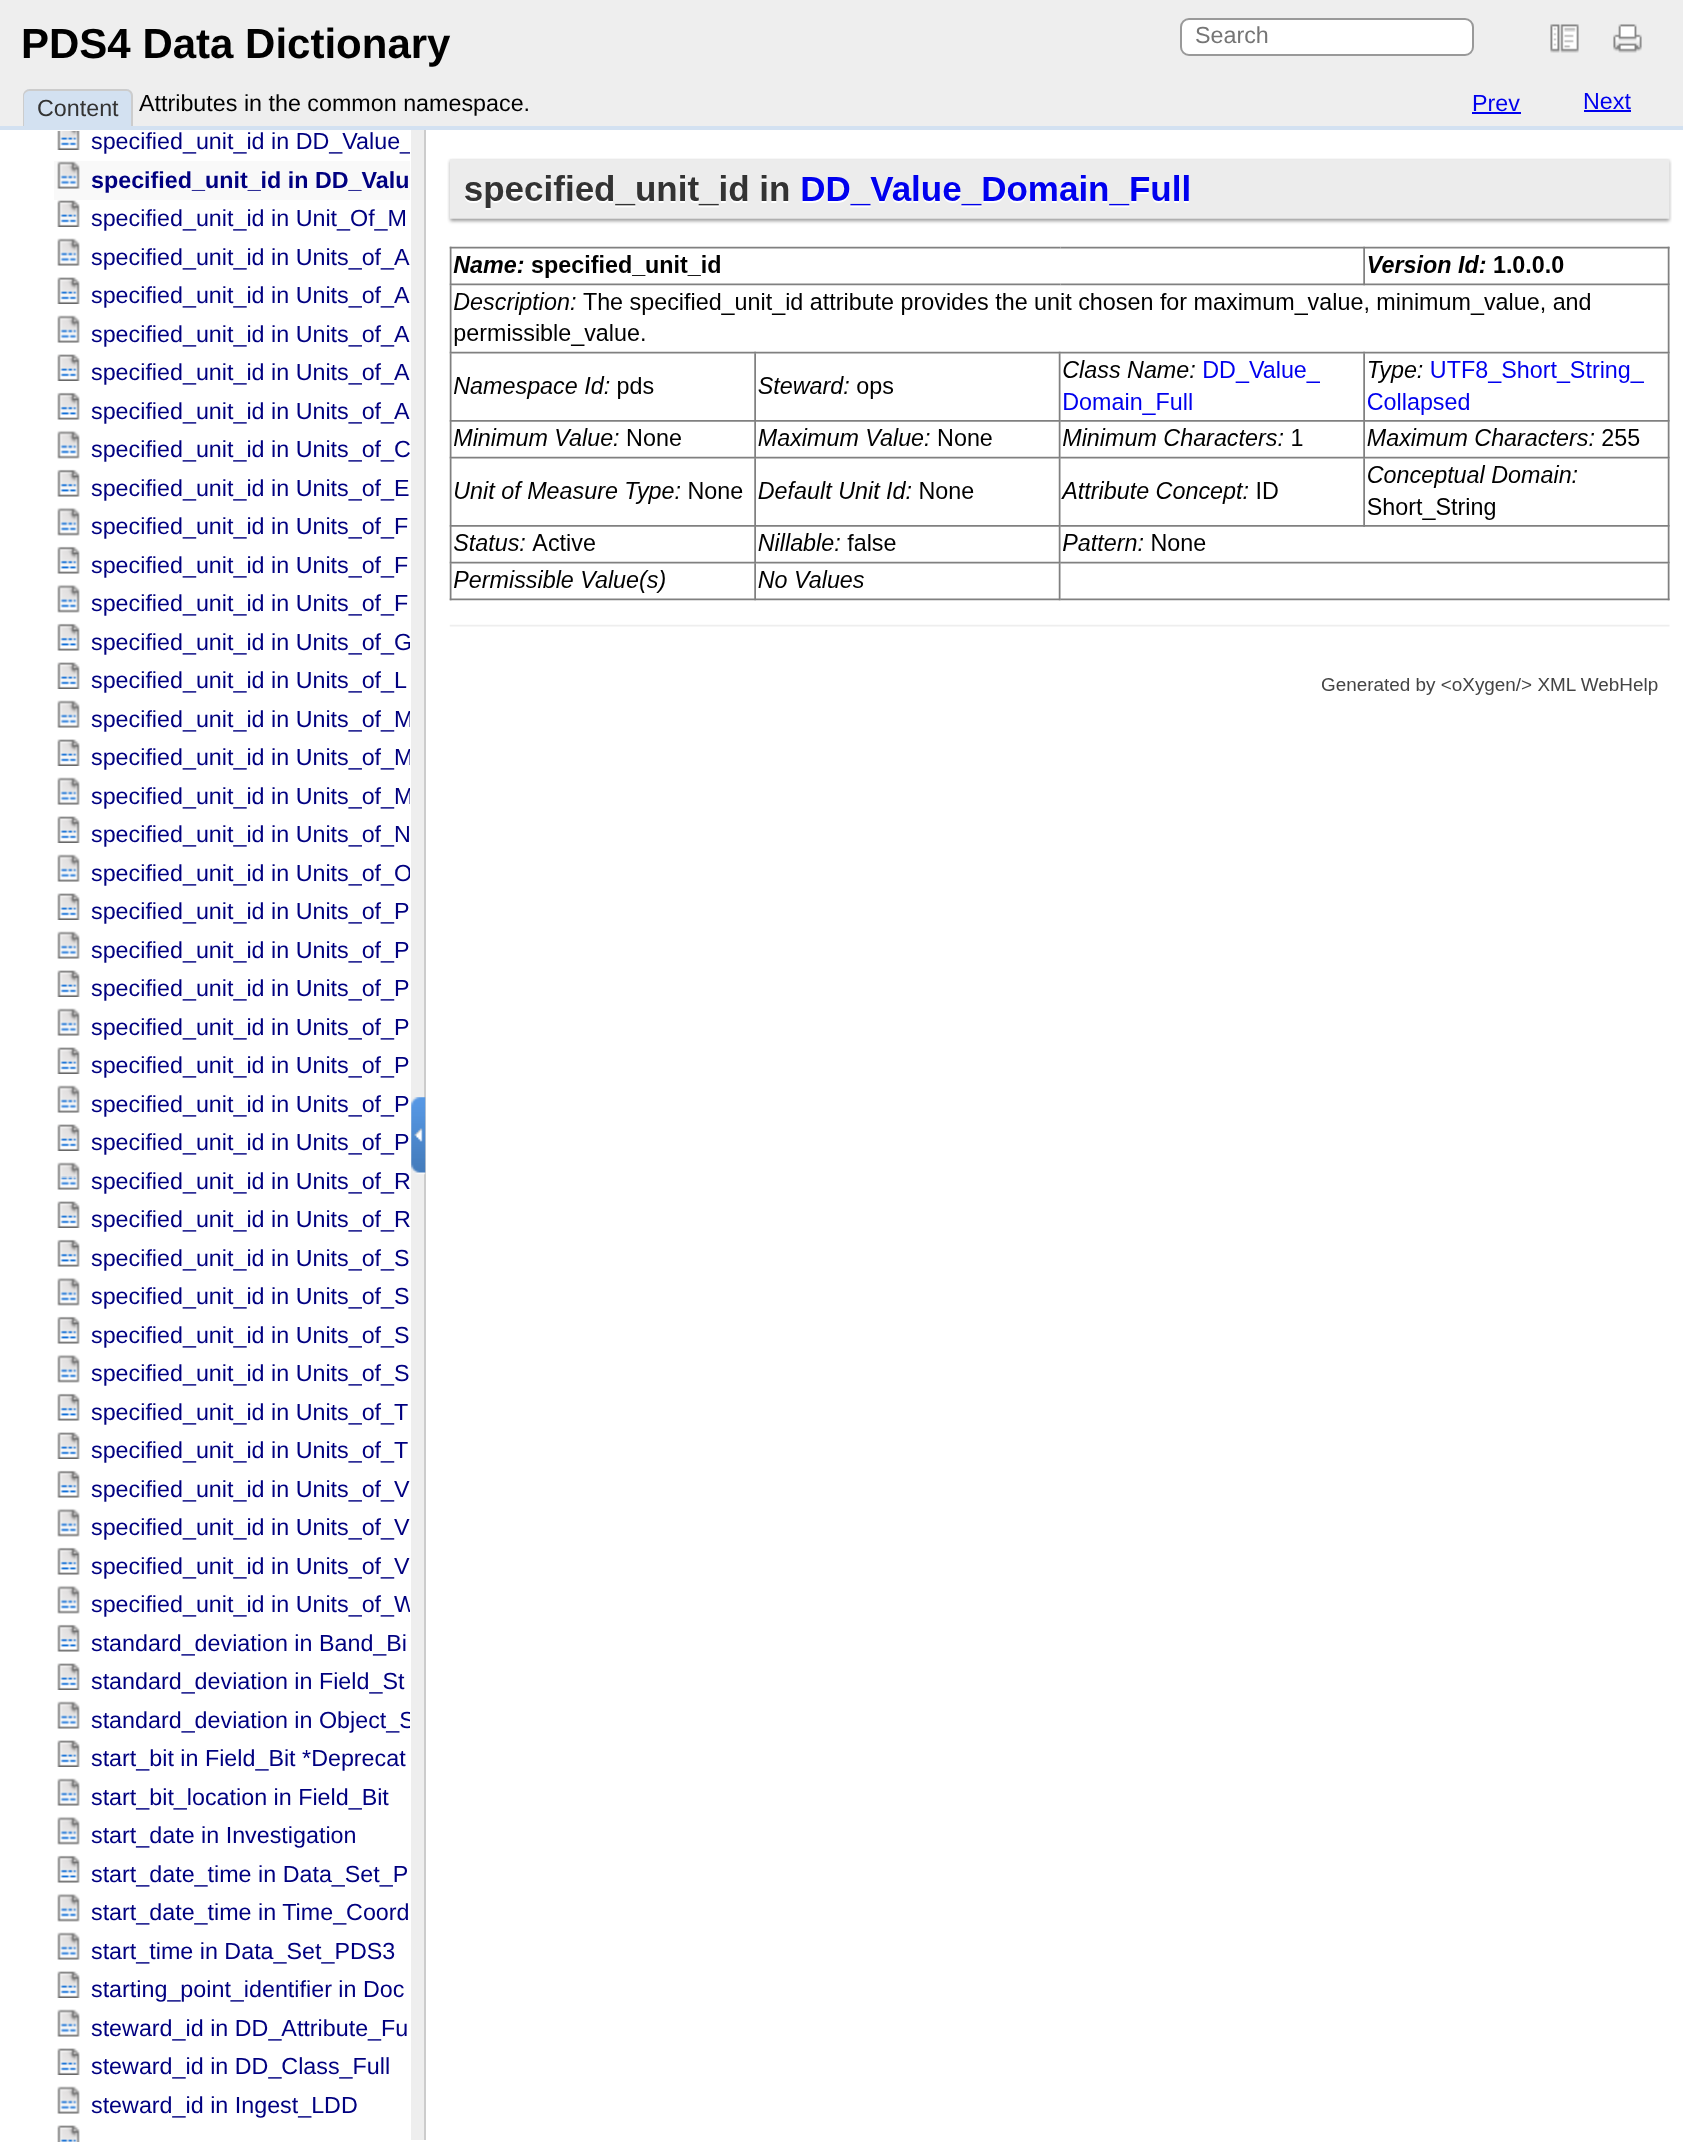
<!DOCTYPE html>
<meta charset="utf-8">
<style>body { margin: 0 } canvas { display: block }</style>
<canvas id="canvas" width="1683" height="2145"></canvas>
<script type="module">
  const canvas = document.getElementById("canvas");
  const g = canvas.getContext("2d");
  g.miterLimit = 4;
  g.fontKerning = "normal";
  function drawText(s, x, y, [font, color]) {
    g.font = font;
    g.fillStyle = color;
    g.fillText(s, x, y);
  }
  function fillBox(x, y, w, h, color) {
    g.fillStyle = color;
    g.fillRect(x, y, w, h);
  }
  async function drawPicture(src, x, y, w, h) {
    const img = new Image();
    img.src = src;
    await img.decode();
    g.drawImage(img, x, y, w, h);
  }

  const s1 = ["bold 42px Liberation Sans", "#000000"];
  const s2 = ["23.3px Liberation Sans", "#757575"];
  const s3 = ["23.3px Liberation Sans", "#333333"];
  const s4 = ["23.3px Liberation Sans", "#000000"];
  const s5 = ["23.3px Liberation Sans", "#0000EE"];
  const s6 = ["23.3px Liberation Sans", "#000080"];
  const s7 = ["bold 23.3px Liberation Sans", "#000080"];

  fillBox(0, 0, 1683, 2145, "#FFFFFF");
  fillBox(0, 0, 1683, 126, "#EEEEEE");
  drawText("PDS4 Data Dictionary", 21, 58, s1);
  g.fillStyle = "#FFFFFF";
  g.beginPath();
  g.roundRect(1181, 19, 292, 36, 8);
  g.fill();
  g.strokeStyle = "#999999";
  g.lineWidth = 2;
  g.stroke();
  drawText("Search", 1195, 43, s2);
  await drawPicture("pic1.png", 1550, 24, 29, 29);
  await drawPicture("pic2.png", 1613, 24, 29, 29);
  g.fillStyle = "#D3E1F1";
  g.beginPath();
  g.roundRect(23, 89, 110, 37, [7, 7, 0, 0]);
  g.fill();
  g.fillStyle = "#CCCCCC";
  g.beginPath();
  g.moveTo(30, 89);
  g.lineTo(126, 89);
  g.bezierCurveTo(130, 89, 133, 92, 133, 96);
  g.lineTo(133, 126);
  g.lineTo(23, 126);
  g.lineTo(23, 96);
  g.bezierCurveTo(23, 92, 26, 89, 30, 89);
  g.closePath();
  g.moveTo(30, 91);
  g.lineTo(126, 91);
  g.bezierCurveTo(129, 91, 131, 93, 131, 96);
  g.lineTo(131, 126);
  g.lineTo(24, 126);
  g.lineTo(24, 96);
  g.bezierCurveTo(24, 93, 27, 91, 30, 91);
  g.closePath();
  g.fill("evenodd");
  drawText("Content", 37, 116, s3);
  drawText("Attributes in the common namespace.", 139, 111, s4);
  drawText("Prev", 1472, 111, s5);
  fillBox(1472, 112, 49, 2, "#0000EE");
  drawText("Next", 1583, 109, s5);
  fillBox(1584, 110, 47, 2, "#0000EE");
  fillBox(0, 126, 1683, 4, "#D3E1F1");
  await drawPicture("pic3.png", 57, 131, 23, 19);
  g.save();
  g.beginPath();
  g.rect(2, 131, 408, 2011);
  g.clip();
  drawText("specified_unit_id in DD_Value_", 91, 149, s6);
  g.restore();
  fillBox(54, 161, 356, 39, "#F9F9F9");
  await drawPicture("pic4.png", 57, 161, 23, 28);
  drawText("specified_unit_id in DD_Valu", 91, 188, s7);
  await drawPicture("pic5.png", 57, 200, 23, 27);
  drawText("specified_unit_id in Unit_Of_M", 91, 226, s6);
  await drawPicture("pic6.png", 57, 238, 23, 28);
  drawText("specified_unit_id in Units_of_A", 91, 265, s6);
  await drawPicture("pic5.png", 57, 277, 23, 27);
  drawText("specified_unit_id in Units_of_A", 91, 303, s6);
  await drawPicture("pic6.png", 57, 315, 23, 28);
  drawText("specified_unit_id in Units_of_A", 91, 342, s6);
  await drawPicture("pic5.png", 57, 354, 23, 27);
  drawText("specified_unit_id in Units_of_A", 91, 380, s6);
  await drawPicture("pic7.png", 57, 392, 23, 28);
  drawText("specified_unit_id in Units_of_A", 91, 419, s6);
  await drawPicture("pic8.png", 57, 430, 23, 29);
  g.save();
  g.beginPath();
  g.rect(2, 131, 408, 2011);
  g.clip();
  drawText("specified_unit_id in Units_of_C", 91, 457, s6);
  g.restore();
  await drawPicture("pic7.png", 57, 469, 23, 28);
  drawText("specified_unit_id in Units_of_E", 91, 496, s6);
  await drawPicture("pic8.png", 57, 507, 23, 29);
  drawText("specified_unit_id in Units_of_F", 91, 534, s6);
  await drawPicture("pic7.png", 57, 546, 23, 28);
  drawText("specified_unit_id in Units_of_F", 91, 573, s6);
  await drawPicture("pic8.png", 57, 584, 23, 29);
  drawText("specified_unit_id in Units_of_F", 91, 611, s6);
  await drawPicture("pic7.png", 57, 623, 23, 28);
  g.save();
  g.beginPath();
  g.rect(2, 131, 408, 2011);
  g.clip();
  drawText("specified_unit_id in Units_of_G", 91, 650, s6);
  g.restore();
  await drawPicture("pic5.png", 57, 662, 23, 27);
  drawText("specified_unit_id in Units_of_L", 91, 688, s6);
  await drawPicture("pic6.png", 57, 700, 23, 28);
  g.save();
  g.beginPath();
  g.rect(2, 131, 408, 2011);
  g.clip();
  drawText("specified_unit_id in Units_of_M", 91, 727, s6);
  g.restore();
  await drawPicture("pic5.png", 57, 739, 23, 27);
  g.save();
  g.beginPath();
  g.rect(2, 131, 408, 2011);
  g.clip();
  drawText("specified_unit_id in Units_of_M", 91, 765, s6);
  g.restore();
  await drawPicture("pic6.png", 57, 777, 23, 28);
  g.save();
  g.beginPath();
  g.rect(2, 131, 408, 2011);
  g.clip();
  drawText("specified_unit_id in Units_of_M", 91, 804, s6);
  g.restore();
  await drawPicture("pic5.png", 57, 816, 23, 27);
  drawText("specified_unit_id in Units_of_N", 91, 842, s6);
  await drawPicture("pic6.png", 57, 854, 23, 28);
  g.save();
  g.beginPath();
  g.rect(2, 131, 408, 2011);
  g.clip();
  drawText("specified_unit_id in Units_of_O", 91, 881, s6);
  g.restore();
  await drawPicture("pic5.png", 57, 893, 23, 27);
  drawText("specified_unit_id in Units_of_P", 91, 919, s6);
  await drawPicture("pic6.png", 57, 931, 23, 28);
  drawText("specified_unit_id in Units_of_P", 91, 958, s6);
  await drawPicture("pic5.png", 57, 970, 23, 27);
  drawText("specified_unit_id in Units_of_P", 91, 996, s6);
  await drawPicture("pic6.png", 57, 1008, 23, 28);
  drawText("specified_unit_id in Units_of_P", 91, 1035, s6);
  await drawPicture("pic5.png", 57, 1047, 23, 27);
  drawText("specified_unit_id in Units_of_P", 91, 1073, s6);
  await drawPicture("pic6.png", 57, 1085, 23, 28);
  drawText("specified_unit_id in Units_of_P", 91, 1112, s6);
  await drawPicture("pic5.png", 57, 1124, 23, 27);
  drawText("specified_unit_id in Units_of_P", 91, 1150, s6);
  await drawPicture("pic9.png", 57, 1162, 23, 28);
  drawText("specified_unit_id in Units_of_R", 91, 1189, s6);
  await drawPicture("pic5.png", 57, 1201, 23, 27);
  drawText("specified_unit_id in Units_of_R", 91, 1227, s6);
  await drawPicture("pic7.png", 57, 1239, 23, 28);
  drawText("specified_unit_id in Units_of_S", 91, 1266, s6);
  await drawPicture("pic8.png", 57, 1277, 23, 29);
  drawText("specified_unit_id in Units_of_S", 91, 1304, s6);
  await drawPicture("pic7.png", 57, 1316, 23, 28);
  drawText("specified_unit_id in Units_of_S", 91, 1343, s6);
  await drawPicture("pic8.png", 57, 1354, 23, 29);
  drawText("specified_unit_id in Units_of_S", 91, 1381, s6);
  await drawPicture("pic7.png", 57, 1393, 23, 28);
  drawText("specified_unit_id in Units_of_T", 91, 1420, s6);
  await drawPicture("pic5.png", 57, 1432, 23, 27);
  drawText("specified_unit_id in Units_of_T", 91, 1458, s6);
  await drawPicture("pic7.png", 57, 1470, 23, 28);
  drawText("specified_unit_id in Units_of_V", 91, 1497, s6);
  await drawPicture("pic8.png", 57, 1508, 23, 29);
  drawText("specified_unit_id in Units_of_V", 91, 1535, s6);
  await drawPicture("pic7.png", 57, 1547, 23, 28);
  drawText("specified_unit_id in Units_of_V", 91, 1574, s6);
  await drawPicture("pic8.png", 57, 1585, 23, 29);
  g.save();
  g.beginPath();
  g.rect(2, 131, 408, 2011);
  g.clip();
  drawText("specified_unit_id in Units_of_W", 91, 1612, s6);
  g.restore();
  await drawPicture("pic7.png", 57, 1624, 23, 28);
  drawText("standard_deviation in Band_Bi", 91, 1651, s6);
  await drawPicture("pic5.png", 57, 1663, 23, 27);
  drawText("standard_deviation in Field_St", 91, 1689, s6);
  await drawPicture("pic6.png", 57, 1701, 23, 28);
  g.save();
  g.beginPath();
  g.rect(2, 131, 408, 2011);
  g.clip();
  drawText("standard_deviation in Object_S", 91, 1728, s6);
  g.restore();
  await drawPicture("pic5.png", 57, 1740, 23, 27);
  drawText("start_bit in Field_Bit *Deprecat", 91, 1766, s6);
  await drawPicture("pic10.png", 57, 1778, 23, 28);
  drawText("start_bit_location in Field_Bit", 91, 1805, s6);
  await drawPicture("pic8.png", 57, 1816, 23, 29);
  drawText("start_date in Investigation", 91, 1843, s6);
  await drawPicture("pic11.png", 57, 1855, 23, 28);
  drawText("start_date_time in Data_Set_P", 91, 1882, s6);
  await drawPicture("pic8.png", 57, 1893, 23, 29);
  drawText("start_date_time in Time_Coord", 91, 1920, s6);
  await drawPicture("pic6.png", 57, 1932, 23, 28);
  drawText("start_time in Data_Set_PDS3", 91, 1959, s6);
  await drawPicture("pic5.png", 57, 1971, 23, 27);
  drawText("starting_point_identifier in Doc", 91, 1997, s6);
  await drawPicture("pic6.png", 57, 2009, 23, 28);
  drawText("steward_id in DD_Attribute_Fu", 91, 2036, s6);
  await drawPicture("pic5.png", 57, 2048, 23, 27);
  drawText("steward_id in DD_Class_Full", 91, 2074, s6);
  await drawPicture("pic6.png", 57, 2086, 23, 28);
  drawText("steward_id in Ingest_LDD", 91, 2113, s6);
  await drawPicture("pic12.png", 57, 2125, 23, 17);
  fillBox(411, 130, 13, 2010, "#EEEEEE");
  fillBox(424, 130, 2, 2010, "#CCCCCC");
  await drawPicture("pic13.png", 411, 1097, 15, 78);
  await drawPicture("pic14.png", 447, 158, 1225, 537);
</script>
